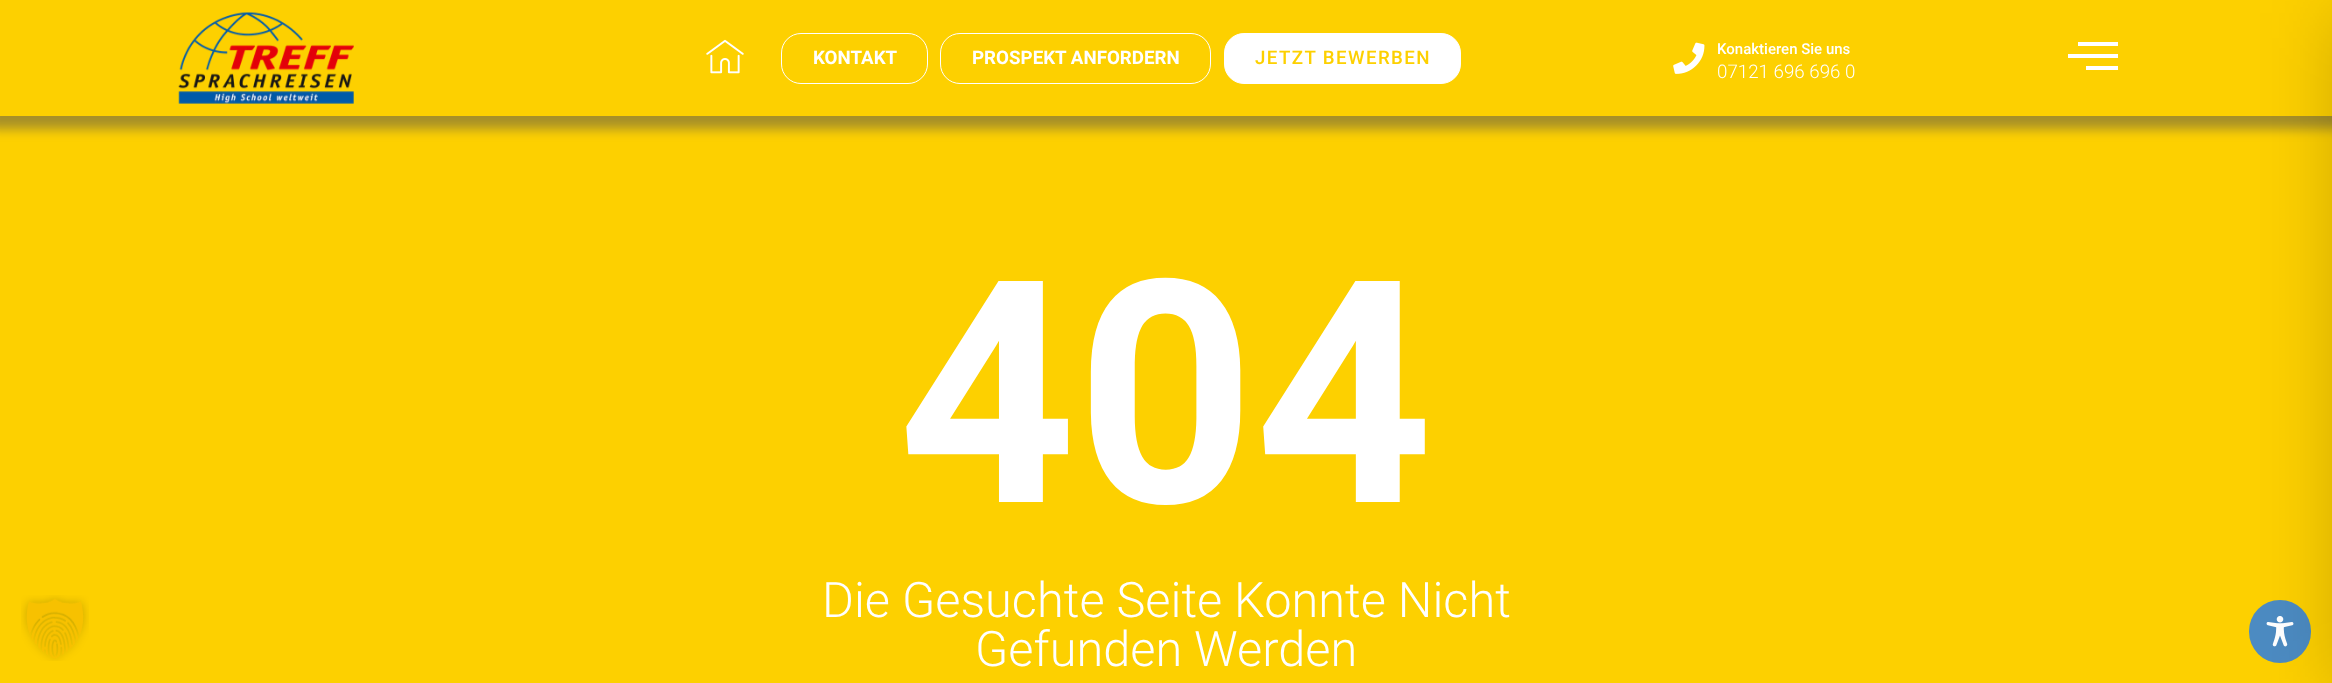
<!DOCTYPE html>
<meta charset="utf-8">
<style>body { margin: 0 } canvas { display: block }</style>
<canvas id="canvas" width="2332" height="683"></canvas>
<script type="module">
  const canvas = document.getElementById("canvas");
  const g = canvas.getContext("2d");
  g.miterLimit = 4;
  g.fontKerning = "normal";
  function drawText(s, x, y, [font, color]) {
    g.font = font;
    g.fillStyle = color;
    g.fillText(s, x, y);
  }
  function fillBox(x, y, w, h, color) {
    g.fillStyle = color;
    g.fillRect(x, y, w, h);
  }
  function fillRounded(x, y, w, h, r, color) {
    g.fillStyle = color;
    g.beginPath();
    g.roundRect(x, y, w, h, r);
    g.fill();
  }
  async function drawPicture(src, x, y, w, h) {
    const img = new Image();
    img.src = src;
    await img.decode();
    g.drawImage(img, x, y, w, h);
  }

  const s1 = ["bold 18.75px Roboto", "#FFFFFF"];
  const s2 = ["500 18.75px Roboto", "#FDD000"];
  const s3 = ["500 15px Roboto", "#FFFFFF"];
  const s4 = ["300 18.75px Roboto", "#FFFFFF"];
  const s5 = ["bold 311px Roboto", "#FFFFFF"];
  const s6 = ["300 48.75px Roboto", "#FFFFFF"];

  fillBox(0, 0, 2332, 683, "#FDD000");
  g.fillStyle = "rgba(80, 80, 80, 0.5)";
  g.filter = "blur(6px)";
  g.beginPath();
  g.rect(-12, -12, 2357, 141);
  g.fill();
  g.filter = "none";
  fillBox(0, 0, 2332, 116, "#FDD000");
  await drawPicture("pic1.png", 178, 12, 176, 92);
  await drawPicture("pic2.png", 706, 39, 38, 35);
  g.beginPath();
  g.roundRect(781.5, 33.5, 146, 50, 19.5);
  g.strokeStyle = "#FFFFFF";
  g.stroke();
  drawText("KONTAKT", 813, 64, s1);
  g.beginPath();
  g.roundRect(940.5, 33.5, 270, 50, 19.5);
  g.stroke();
  drawText("PROSPEKT ANFORDERN", 972, 64, s1);
  g.beginPath();
  g.roundRect(1224.5, 33.5, 236, 50, 19.5);
  g.fill();
  g.stroke();
  g.letterSpacing = "1.4px";
  drawText("JETZT BEWERBEN", 1255, 64, s2);
  await drawPicture("pic3.png", 1673, 42, 32, 32);
  g.letterSpacing = "0px";
  drawText("Konaktieren Sie uns", 1717, 54, s3);
  drawText("07121 696 696 0", 1717, 78, s4);
  g.beginPath();
  g.moveTo(2068, 58);
  g.lineTo(2118, 58);
  g.lineTo(2118, 54);
  g.lineTo(2068, 54);
  g.closePath();
  g.moveTo(2086, 70);
  g.lineTo(2118, 70);
  g.lineTo(2118, 66);
  g.lineTo(2086, 66);
  g.closePath();
  g.moveTo(2078, 42);
  g.lineTo(2078, 46);
  g.lineTo(2118, 46);
  g.lineTo(2118, 42);
  g.closePath();
  g.fill();
  fillRounded(2249, 600, 62, 63, 31, "#4C8BC2");
  await drawPicture("pic5.png", 2266, 616, 28, 31);
  g.fillStyle = "rgba(0, 0, 0, 0.2)";
  g.filter = "blur(37.5px)";
  g.beginPath();
  g.rect(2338, 13, 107, 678);
  g.fill();
  g.filter = "none";
  await drawPicture("pic4.png", 21, 595, 68, 66);
  drawText("404", 898, 502, s5);
  drawText("Die Gesuchte Seite Konnte Nicht", 822, 617, s6);
  drawText("Gefunden Werden", 975, 666, s6);
</script>
